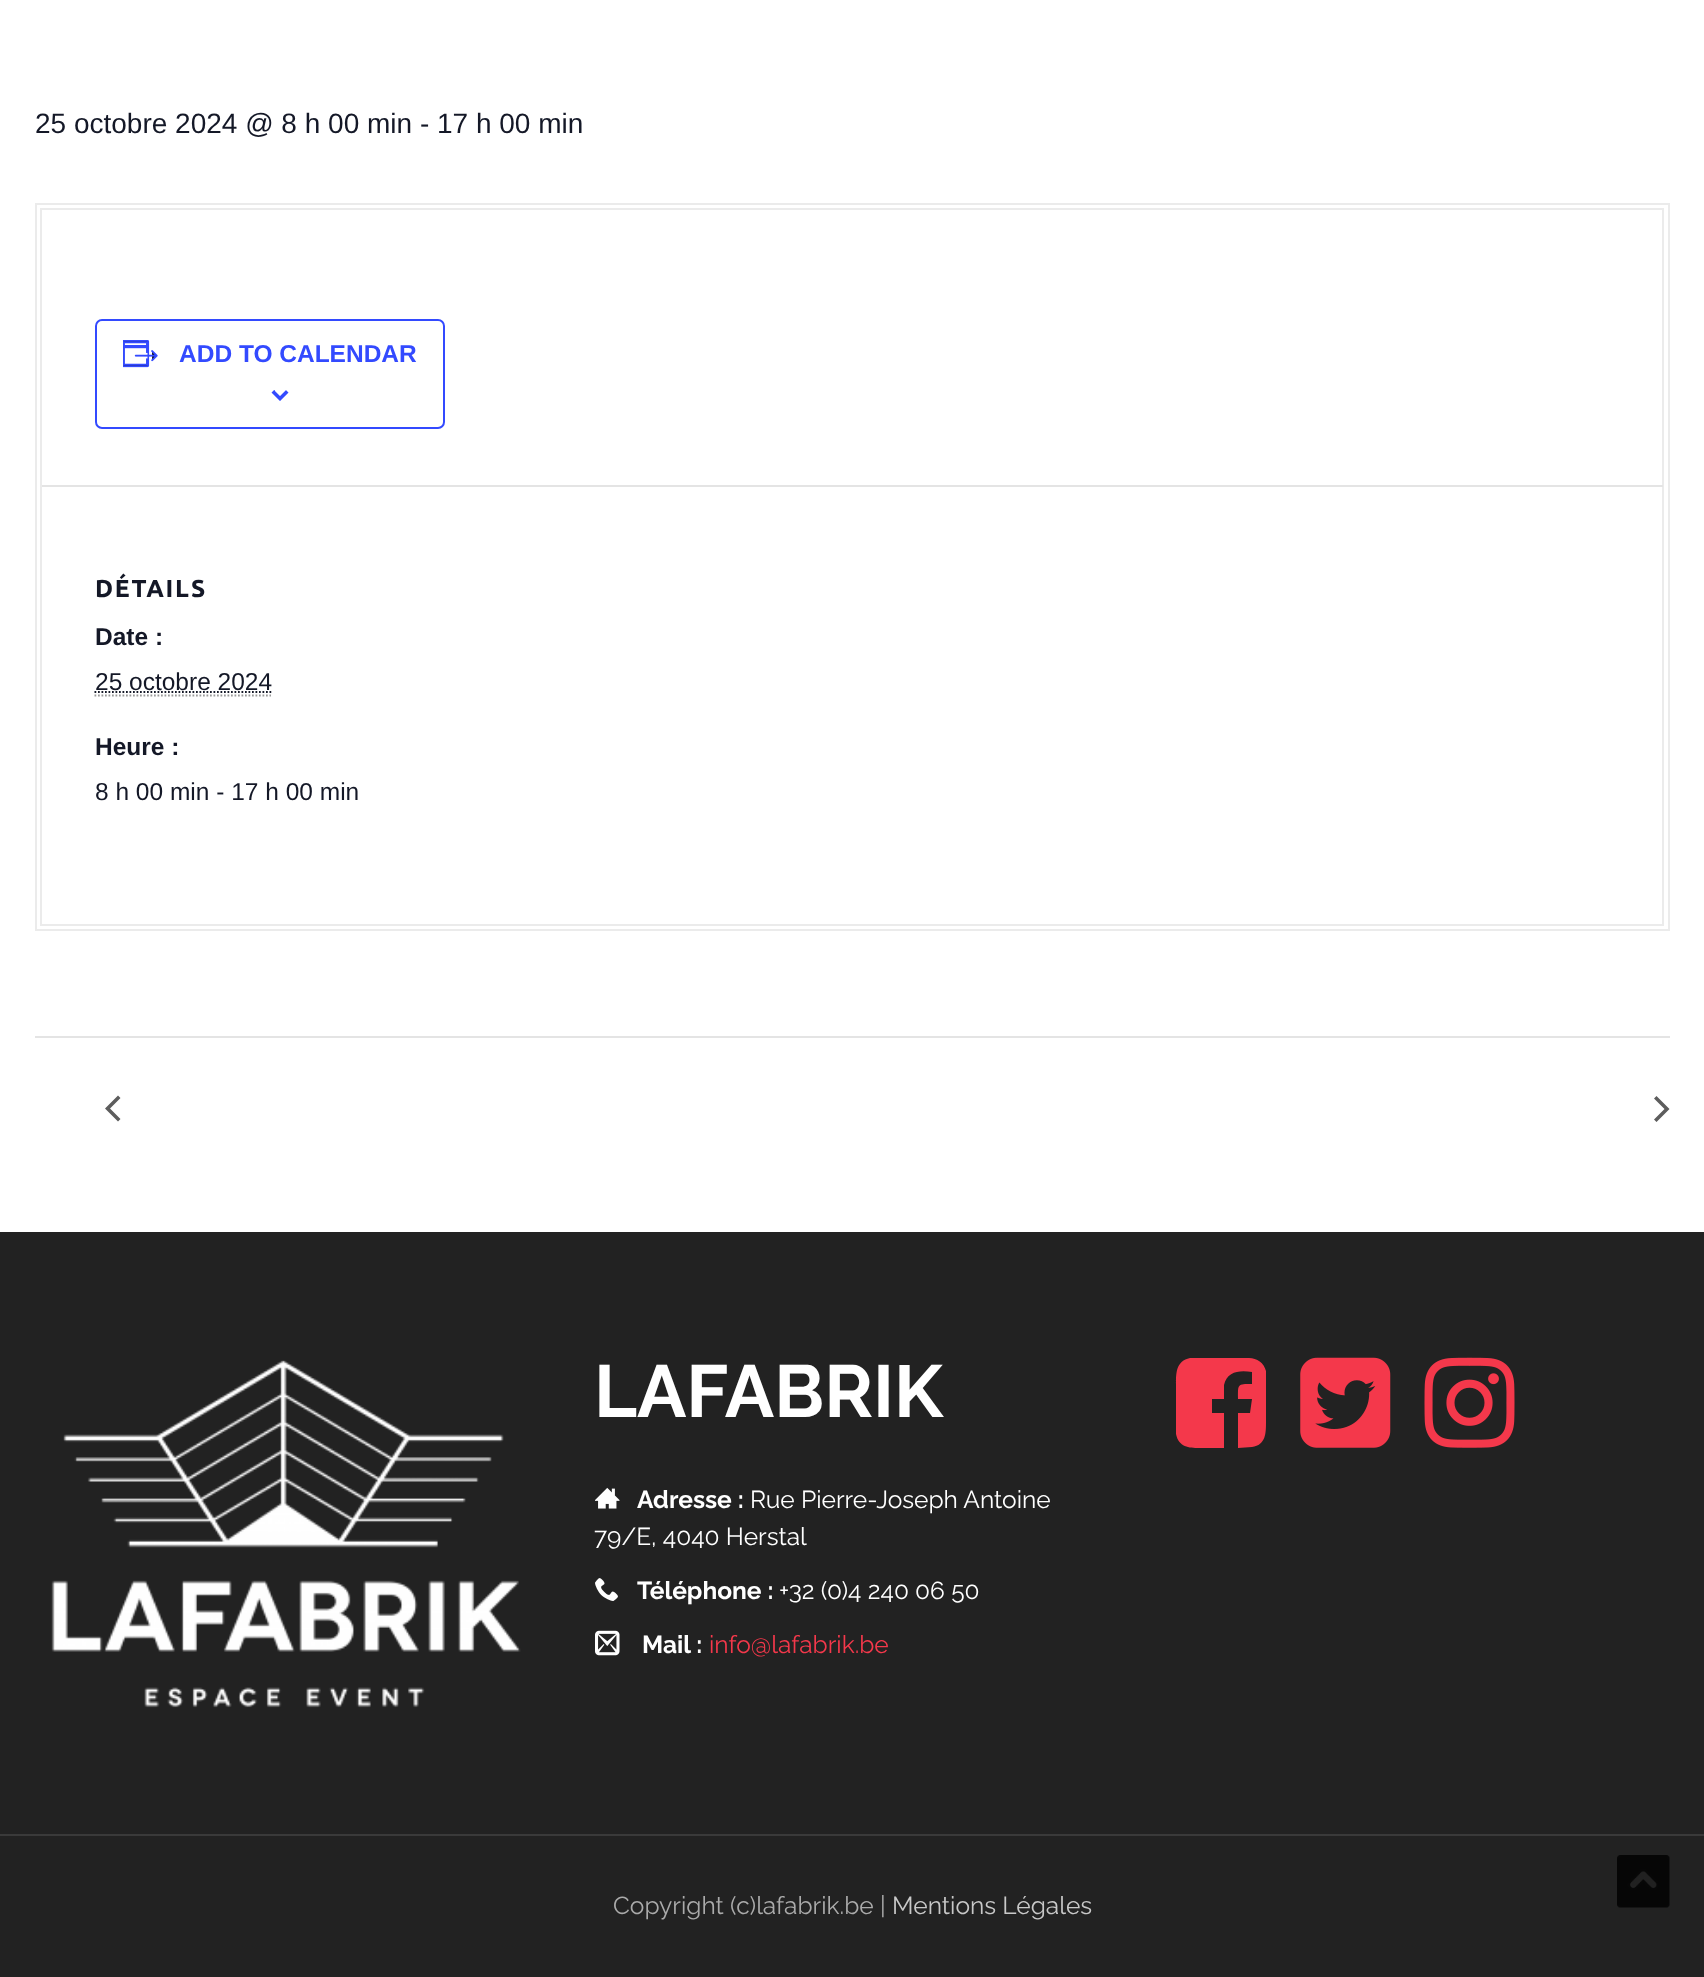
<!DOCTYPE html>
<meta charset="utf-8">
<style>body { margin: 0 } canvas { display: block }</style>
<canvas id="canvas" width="1704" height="1977"></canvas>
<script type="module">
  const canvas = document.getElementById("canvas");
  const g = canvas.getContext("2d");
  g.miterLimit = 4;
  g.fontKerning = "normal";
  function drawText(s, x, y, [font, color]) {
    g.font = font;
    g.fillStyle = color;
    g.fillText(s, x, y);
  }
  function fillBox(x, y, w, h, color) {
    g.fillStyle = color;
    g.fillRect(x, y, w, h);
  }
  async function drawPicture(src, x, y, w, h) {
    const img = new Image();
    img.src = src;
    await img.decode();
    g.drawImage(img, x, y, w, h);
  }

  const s1 = ["28px Liberation Sans", "#141827"];
  const s2 = ["bold 24.5px Liberation Sans", "#334AFF"];
  const s3 = ["bold 24.5px Ubuntu", "#141827"];
  const s4 = ["bold 24.5px Liberation Sans", "#141827"];
  const s5 = ["24.5px Liberation Sans", "#141827"];
  const s6 = ["bold 73.5px Raleway", "#FFFFFF"];
  const s7 = ["bold 24.5px Raleway", "#FFFFFF"];
  const s8 = ["24.5px Raleway", "#FFFFFF"];
  const s9 = ["24.5px Raleway", "#F4384B"];
  const s10 = ["24.5px Raleway", "#AAAAAA"];
  const s11 = ["24.5px Raleway", "#C8C8C8"];

  fillBox(0, 0, 1704, 1977, "#FFFFFF");
  drawText("25 octobre 2024 @ 8 h 00 min - 17 h 00 min", 35, 133, s1);
  g.strokeStyle = "#EBEBEB";
  g.lineWidth = 2;
  g.strokeRect(36, 204, 1633, 726);
  g.strokeRect(41, 209, 1622, 716);
  g.beginPath();
  g.roundRect(96, 320, 348, 108, 6);
  g.strokeStyle = "#334AFF";
  g.stroke();
  await drawPicture("pic1.png", 123, 340, 35, 28);
  drawText("ADD TO CALENDAR", 179, 362, s2);
  await drawPicture("pic2.png", 271, 390, 18, 11);
  fillBox(42, 485, 1621, 2, "#E4E4E4");
  g.letterSpacing = "1.75px";
  drawText("DÉTAILS", 95, 597, s3);
  g.letterSpacing = "0px";
  drawText("Date :", 95, 645, s4);
  drawText("25 octobre 2024", 95, 690, s5);
  g.beginPath();
  g.moveTo(94.5, 695.5);
  g.lineTo(271, 695.5);
  g.strokeStyle = "#999999";
  g.lineWidth = 1.8;
  g.setLineDash([1.75, 1.75]);
  g.stroke();
  g.beginPath();
  g.moveTo(94.5, 692);
  g.lineTo(271.5, 692);
  g.strokeStyle = "#141827";
  g.stroke();
  drawText("Heure :", 95, 755, s4);
  drawText("8 h 00 min - 17 h 00 min", 95, 800, s5);
  fillBox(35, 1036, 1635, 2, "#E4E4E4");
  g.fillStyle = "#5D5D5D";
  g.beginPath();
  g.moveTo(120.5, 1119);
  g.lineTo(118, 1121.5);
  g.lineTo(105, 1108.5);
  g.lineTo(118, 1095.5);
  g.lineTo(120.5, 1098);
  g.lineTo(110, 1108.5);
  g.closePath();
  g.fill();
  g.beginPath();
  g.moveTo(1654, 1098.5);
  g.lineTo(1656.5, 1096);
  g.lineTo(1669.5, 1109);
  g.lineTo(1656.5, 1122);
  g.lineTo(1654, 1119.5);
  g.lineTo(1664.5, 1109);
  g.closePath();
  g.fill();
  fillBox(0, 1232, 1704, 602, "#222222");
  await drawPicture("pic3.png", 51, 1360, 470, 348);
  drawText("LAFABRIK", 594, 1417, s6);
  await drawPicture("pic4.png", 595, 1487, 25, 22);
  drawText("Adresse :", 637, 1508, s7);
  drawText("Rue Pierre-Joseph Antoine", 750, 1508, s8);
  drawText("79/E, 4040 Herstal", 594, 1545, s8);
  await drawPicture("pic5.png", 595, 1578, 23, 23);
  drawText("Téléphone :", 637, 1599, s7);
  drawText("+32 (0)4 240 06 50", 779, 1599, s8);
  await drawPicture("pic6.png", 595, 1630, 25, 26);
  drawText("Mail :", 642, 1653, s7);
  drawText("info@lafabrik.be", 709, 1653, s9);
  g.beginPath();
  g.moveTo(1249, 1358);
  g.bezierCurveTo(1257, 1358, 1264, 1363, 1266, 1371);
  g.lineTo(1266, 1422);
  g.bezierCurveTo(1266, 1433, 1266, 1445, 1252, 1447);
  g.lineTo(1238, 1448);
  g.lineTo(1238, 1413);
  g.lineTo(1250, 1413);
  g.lineTo(1252, 1399);
  g.lineTo(1238, 1399);
  g.bezierCurveTo(1238, 1384, 1237, 1384, 1252, 1384);
  g.lineTo(1252, 1372);
  g.bezierCurveTo(1240, 1370, 1227, 1371, 1224, 1385);
  g.lineTo(1224, 1399);
  g.lineTo(1212, 1399);
  g.lineTo(1212, 1413);
  g.lineTo(1224, 1413);
  g.lineTo(1224, 1448);
  g.lineTo(1203, 1448);
  g.bezierCurveTo(1192, 1448, 1179, 1449, 1176, 1434);
  g.lineTo(1176, 1384);
  g.bezierCurveTo(1176, 1373, 1176, 1361, 1190, 1358);
  g.closePath();
  g.fill();
  await drawPicture("pic7.png", 1300, 1357, 91, 91);
  await drawPicture("pic8.png", 1424, 1357, 91, 91);
  fillBox(0, 1836, 1704, 141, "#222222");
  fillBox(0, 1834, 1704, 2, "#3A3A3A");
  drawText("Copyright (c)lafabrik.be |", 613, 1914, s10);
  drawText("Mentions Légales", 892, 1914, s11);
  await drawPicture("pic9.png", 1617, 1855, 53, 53);
</script>
